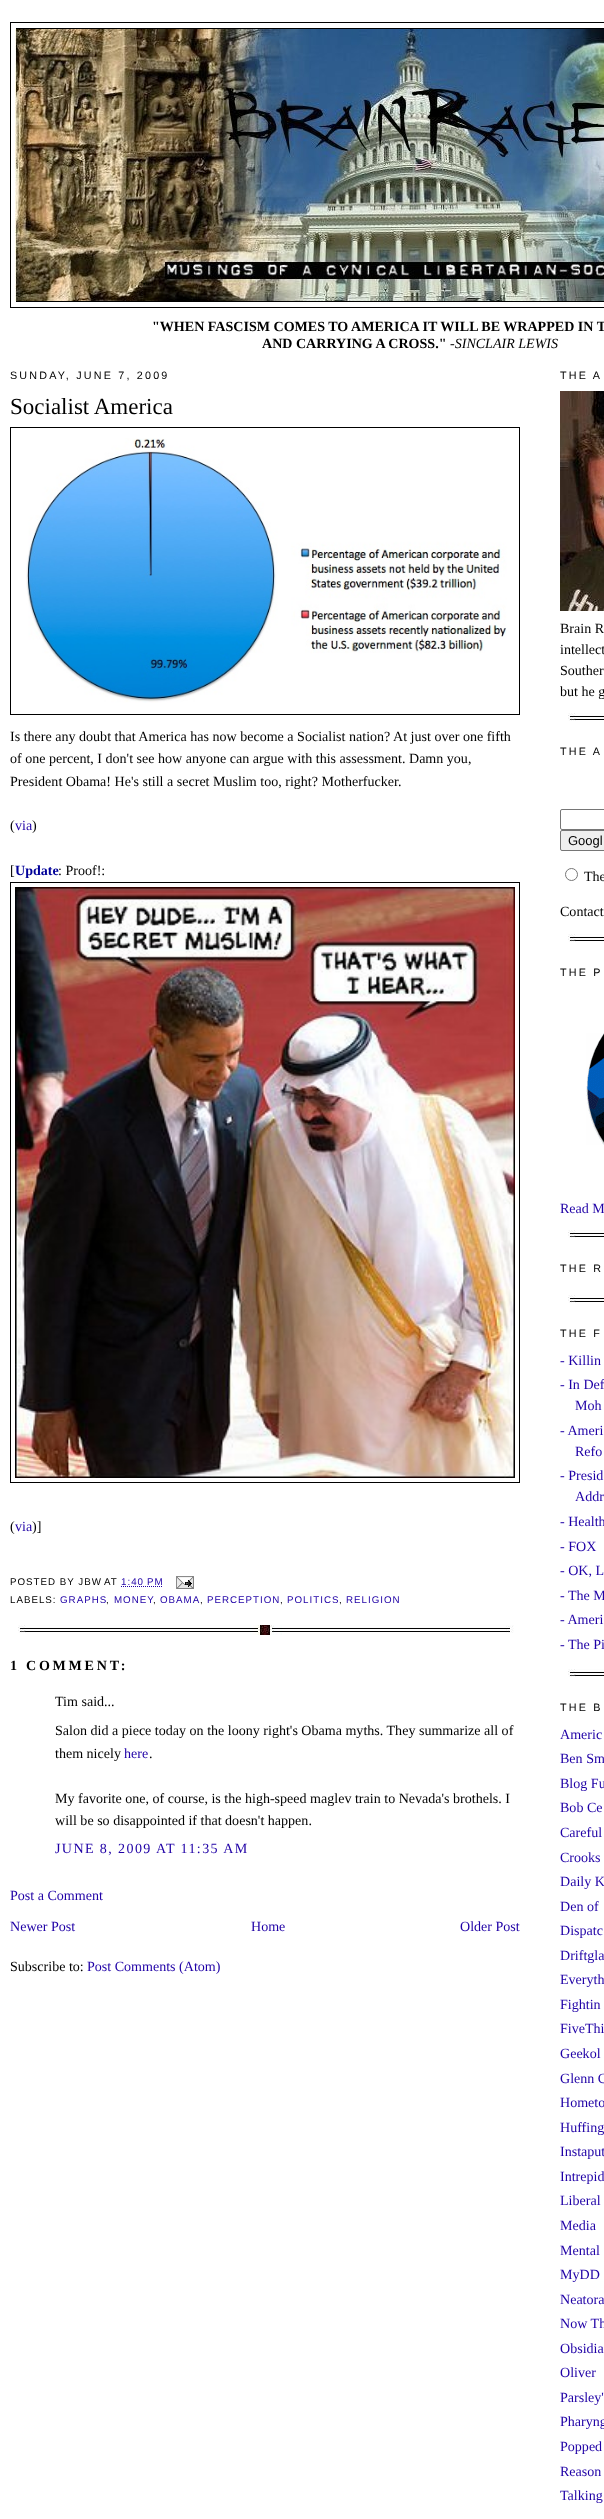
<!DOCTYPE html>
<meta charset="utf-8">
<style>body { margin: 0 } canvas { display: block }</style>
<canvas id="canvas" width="604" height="2519"></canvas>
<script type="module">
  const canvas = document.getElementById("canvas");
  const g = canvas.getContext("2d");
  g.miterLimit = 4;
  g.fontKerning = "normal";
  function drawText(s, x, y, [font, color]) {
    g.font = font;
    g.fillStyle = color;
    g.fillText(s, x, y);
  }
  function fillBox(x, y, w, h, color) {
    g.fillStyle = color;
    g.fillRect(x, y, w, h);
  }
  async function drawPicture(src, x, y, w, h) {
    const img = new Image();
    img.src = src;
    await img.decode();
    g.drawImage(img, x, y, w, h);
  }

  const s1 = ["bold 14.05px Liberation Serif", "#000000"];
  const s2 = ["italic 14.05px Liberation Serif", "#000000"];
  const s3 = ["10.75px Liberation Sans", "#000000"];
  const s4 = ["23px Liberation Serif", "#000000"];
  const s5 = ["14.05px Liberation Serif", "#000000"];
  const s6 = ["14.05px Liberation Serif", "#1F00A6"];
  const s7 = ["bold 14.05px Liberation Serif", "#000099"];
  const s8 = ["9.75px Liberation Sans", "#000000"];
  const s9 = ["9.75px Liberation Sans", "#1F00A6"];
  const s10 = ["13px Liberation Sans", "#000000"];

  fillBox(0, 0, 604, 2519, "#FFFFFF");
  g.strokeStyle = "#000000";
  g.strokeRect(10.5, 22.5, 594, 285);
  g.strokeRect(16.5, 28.5, 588, 273);
  await drawPicture("pic1.png", 15, 29, 589, 272);
  drawText("\"WHEN FASCISM COMES TO AMERICA IT WILL BE WRAPPED IN T", 152, 331, s1);
  drawText("AND CARRYING A CROSS.\"", 262, 348, s1);
  drawText("-SINCLAIR LEWIS", 450, 348, s2);
  g.letterSpacing = "2.2px";
  drawText("SUNDAY, JUNE 7, 2009", 10, 379, s3);
  await drawPicture("pic2.png", 18, 1625, 496, 10);
  g.letterSpacing = "0px";
  drawText("Socialist America", 10, 414, s4);
  g.strokeRect(10.5, 427.5, 509, 287);
  await drawPicture("pic3.png", 26, 438, 481, 265);
  drawText("Is there any doubt that America has now become a Socialist nation? At just over one fifth", 10, 741, s5);
  drawText("of one percent, I don't see how anyone can argue with this assessment. Damn you,", 10, 763, s5);
  drawText("President Obama! He's still a secret Muslim too, right? Motherfucker.", 10, 786, s5);
  drawText("(", 10, 830, s5);
  drawText("via", 15, 830, s6);
  drawText(")", 32, 830, s5);
  drawText("[", 10, 875, s5);
  drawText("Update", 15, 875, s7);
  drawText(": Proof!:", 58, 875, s5);
  g.strokeRect(10.5, 882.5, 509, 600);
  await drawPicture("pic4.png", 15, 887, 500, 591);
  drawText("(", 10, 1531, s5);
  drawText("via", 15, 1531, s6);
  drawText(")]", 32, 1531, s5);
  g.letterSpacing = "1px";
  drawText("POSTED BY JBW", 10, 1585, s8);
  drawText("AT", 104, 1585, s8);
  drawText("1:40 PM", 121, 1585, s9);
  g.beginPath();
  g.moveTo(121, 1586.5);
  g.lineTo(163, 1586.5);
  g.strokeStyle = "#1F00A6";
  g.setLineDash([1, 1]);
  g.stroke();
  await drawPicture("pic5.png", 176, 1576, 18, 13);
  drawText("LABELS:", 10, 1603, s8);
  drawText("GRAPHS", 60, 1603, s9);
  drawText(",", 106, 1603, s8);
  drawText("MONEY", 114, 1603, s9);
  drawText(",", 153, 1603, s8);
  drawText("OBAMA", 160, 1603, s9);
  drawText(",", 200, 1603, s8);
  drawText("PERCEPTION", 207, 1603, s9);
  drawText(",", 280, 1603, s8);
  drawText("POLITICS", 287, 1603, s9);
  drawText(",", 339, 1603, s8);
  drawText("RELIGION", 346, 1603, s9);
  g.letterSpacing = "2.75px";
  drawText("1 COMMENT:", 10, 1670, s1);
  g.letterSpacing = "0px";
  drawText("Tim said...", 55, 1706, s5);
  drawText("Salon did a piece today on the loony right's Obama myths. They summarize all of", 55, 1735, s5);
  drawText("them nicely", 55, 1758, s5);
  drawText("here", 124, 1758, s6);
  drawText(".", 149, 1758, s5);
  drawText("My favorite one, of course, is the high-speed maglev train to Nevada's brothels. I", 55, 1803, s5);
  drawText("will be so disappointed if that doesn't happen.", 55, 1825, s5);
  g.letterSpacing = "1.4px";
  drawText("JUNE 8, 2009 AT 11:35 AM", 55, 1853, s6);
  g.letterSpacing = "0px";
  drawText("Post a Comment", 10, 1900, s6);
  drawText("Newer Post", 10, 1931, s6);
  drawText("Home", 251, 1931, s6);
  drawText("Older Post", 460, 1931, s6);
  drawText("Subscribe to:", 10, 1971, s5);
  drawText("Post Comments (Atom)", 87, 1971, s6);
  await drawPicture("pic6.png", 568, 713, 36, 8);
  g.letterSpacing = "2.2px";
  drawText("THE A", 560, 379, s3);
  await drawPicture("pic7.png", 560, 391, 44, 220);
  g.letterSpacing = "0px";
  drawText("Brain R", 560, 633, s5);
  drawText("intellect", 560, 654, s5);
  drawText("Souther", 560, 675, s5);
  drawText("but he g", 560, 696, s5);
  await drawPicture("pic6.png", 568, 934, 36, 8);
  g.letterSpacing = "2.2px";
  drawText("THE A", 560, 755, s3);
  g.beginPath();
  g.roundRect(560.5, 809.5, 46, 20, 1.5);
  g.strokeStyle = "#767676";
  g.setLineDash([]);
  g.stroke();
  g.fillStyle = "#EFEFEF";
  g.beginPath();
  g.roundRect(560.5, 830.5, 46, 20, 1.5);
  g.fill();
  g.stroke();
  g.letterSpacing = "0px";
  drawText("Googl", 568, 845, s10);
  g.beginPath();
  g.arc(571.5, 874.5, 6, 0, Math.PI * 2);
  g.stroke();
  drawText("The", 584, 881, s5);
  drawText("Contact", 560, 916, s5);
  await drawPicture("pic6.png", 568, 1230, 36, 8);
  g.letterSpacing = "2.2px";
  drawText("THE P", 560, 976, s3);
  await drawPicture("pic8.png", 586, 1033, 18, 112);
  g.letterSpacing = "0px";
  drawText("Read M", 560, 1213, s6);
  await drawPicture("pic6.png", 568, 1295, 36, 8);
  g.letterSpacing = "2.2px";
  drawText("THE R", 560, 1272, s3);
  await drawPicture("pic6.png", 568, 1669, 36, 8);
  drawText("THE F", 560, 1337, s3);
  g.letterSpacing = "0px";
  drawText("- Killin", 560, 1365, s6);
  drawText("- In Def", 560, 1389, s6);
  drawText("Moh", 575, 1410, s6);
  drawText("- Ameri", 560, 1435, s6);
  drawText("Refo", 575, 1456, s6);
  drawText("- Presid", 560, 1480, s6);
  drawText("Addr", 575, 1501, s6);
  drawText("- Health", 560, 1526, s6);
  drawText("- FOX", 560, 1551, s6);
  drawText("- OK, L", 560, 1575, s6);
  drawText("- The M", 560, 1600, s6);
  drawText("- Ameri", 560, 1624, s6);
  drawText("- The Pi", 560, 1649, s6);
  g.letterSpacing = "2.2px";
  drawText("THE B", 560, 1711, s3);
  g.letterSpacing = "0px";
  drawText("Americ", 560, 1739, s6);
  drawText("Ben Sm", 560, 1763, s6);
  drawText("Blog Fu", 560, 1788, s6);
  drawText("Bob Ce", 560, 1812, s6);
  drawText("Careful", 560, 1837, s6);
  drawText("Crooks", 560, 1862, s6);
  drawText("Daily K", 560, 1886, s6);
  drawText("Den of", 560, 1911, s6);
  drawText("Dispatc", 560, 1935, s6);
  drawText("Driftgla", 560, 1960, s6);
  drawText("Everyth", 560, 1984, s6);
  drawText("Fightin", 560, 2009, s6);
  drawText("FiveThi", 560, 2033, s6);
  drawText("Geekol", 560, 2058, s6);
  drawText("Glenn G", 560, 2083, s6);
  drawText("Hometo", 560, 2107, s6);
  drawText("Huffing", 560, 2132, s6);
  drawText("Instaput", 560, 2156, s6);
  drawText("Intrepid", 560, 2181, s6);
  drawText("Liberal", 560, 2205, s6);
  drawText("Media", 560, 2230, s6);
  drawText("Mental", 560, 2255, s6);
  drawText("MyDD", 560, 2279, s6);
  drawText("Neatora", 560, 2304, s6);
  drawText("Now Th", 560, 2328, s6);
  drawText("Obsidia", 560, 2353, s6);
  drawText("Oliver", 560, 2377, s6);
  drawText("Parsley'", 560, 2402, s6);
  drawText("Pharyng", 560, 2426, s6);
  drawText("Popped", 560, 2451, s6);
  drawText("Reason", 560, 2476, s6);
  drawText("Talking", 560, 2500, s6);
</script>
